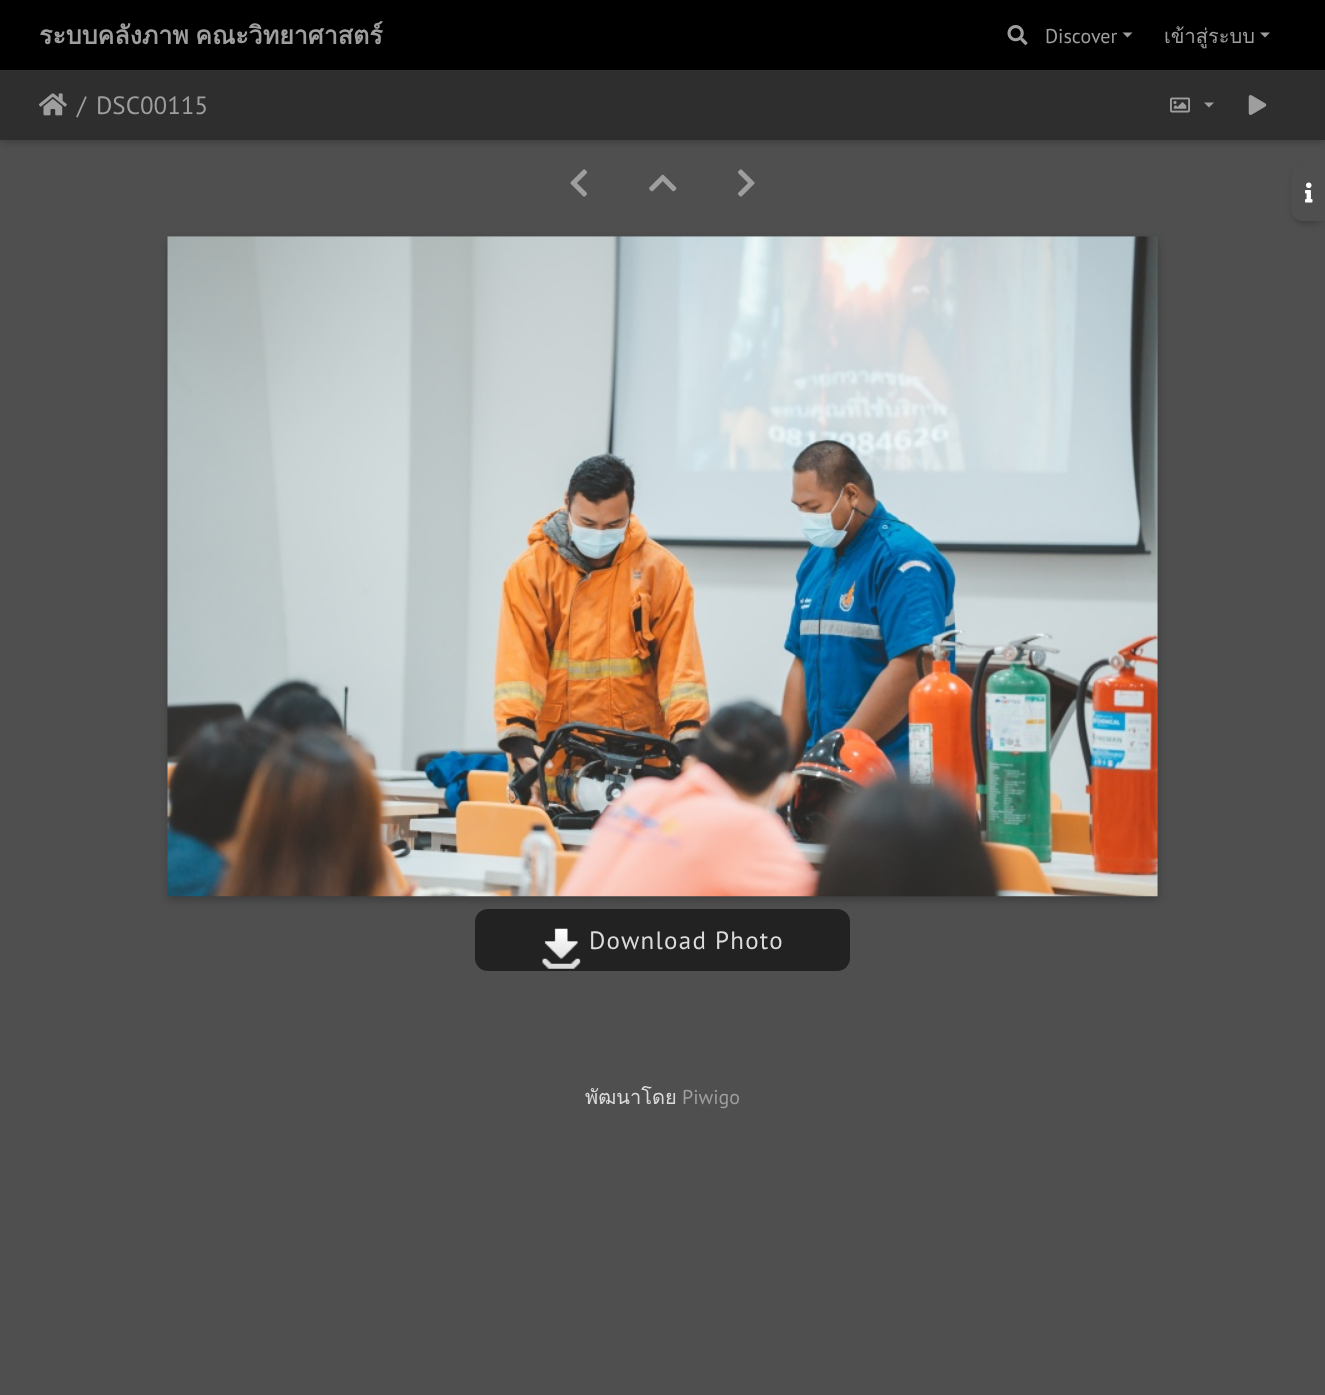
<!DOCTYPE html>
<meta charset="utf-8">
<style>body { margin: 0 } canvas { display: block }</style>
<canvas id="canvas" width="1325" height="1395"></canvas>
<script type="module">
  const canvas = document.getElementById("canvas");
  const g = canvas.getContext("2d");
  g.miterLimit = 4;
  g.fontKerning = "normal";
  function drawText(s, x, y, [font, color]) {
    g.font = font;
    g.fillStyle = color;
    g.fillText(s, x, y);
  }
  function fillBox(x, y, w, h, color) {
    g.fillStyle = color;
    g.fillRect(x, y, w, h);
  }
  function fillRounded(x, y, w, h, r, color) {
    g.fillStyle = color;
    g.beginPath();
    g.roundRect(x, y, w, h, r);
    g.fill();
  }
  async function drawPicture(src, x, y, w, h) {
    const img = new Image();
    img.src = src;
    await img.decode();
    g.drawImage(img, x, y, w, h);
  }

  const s1 = ["bold 25px Loma", "#9E9E9E"];
  const s2 = ["20px PT Sans", "#9E9E9E"];
  const s3 = ["20px Loma", "#9E9E9E"];
  const s4 = ["25px PT Sans", "#9E9E9E"];
  const s5 = ["25px PT Sans", "#DBDBDB"];
  const s6 = ["20px Loma", "#DBDBDB"];

  fillBox(0, 0, 1325, 1395, "#4F4F4F");
  g.fillStyle = "rgba(0, 0, 0, 0.2)";
  g.filter = "blur(3px)";
  g.beginPath();
  g.rect(1, 75, 1323, 68);
  g.fill();
  g.filter = "none";
  fillBox(0, 0, 1325, 70, "#000000");
  g.wordSpacing = "-2px";
  drawText("ระบบคลังภาพ คณะวิทยาศาสตร์", 39, 44, s1);
  await drawPicture("pic1.png", 1007, 25, 21, 20);
  g.wordSpacing = "0px";
  drawText("Discover", 1045, 43, s2);
  g.beginPath();
  g.moveTo(1122.5, 32.5);
  g.lineTo(1132.5, 32.5);
  g.lineTo(1127.5, 37.5);
  g.closePath();
  g.fill();
  drawText("เข้าสู่ระบบ", 1164, 43, s3);
  g.beginPath();
  g.moveTo(1260, 32.5);
  g.lineTo(1270, 32.5);
  g.lineTo(1265, 37.5);
  g.closePath();
  g.fill();
  fillBox(0, 70, 1325, 70, "#2E2E2E");
  await drawPicture("pic2.png", 39, 93, 28, 23);
  drawText("/", 77, 114, s4);
  drawText("DSC00115", 96, 114, s4);
  await drawPicture("pic3.png", 1170, 97, 20, 16);
  g.beginPath();
  g.moveTo(1204, 102.5);
  g.lineTo(1214, 102.5);
  g.lineTo(1209, 107.5);
  g.closePath();
  g.fill();
  await drawPicture("pic4.png", 1248, 95, 19, 20);
  await drawPicture("pic5.png", 570, 169, 17, 28);
  await drawPicture("pic6.png", 649, 174, 28, 18);
  await drawPicture("pic7.png", 738, 169, 17, 28);
  g.fillStyle = "rgba(0, 0, 0, 0.2)";
  g.filter = "blur(3px)";
  g.beginPath();
  g.roundRect(1293, 169, 31, 55, 11);
  g.fill();
  g.filter = "none";
  g.fillStyle = "#4F4F4F";
  g.beginPath();
  g.roundRect(1291, 164, 34, 57, [13, 0, 0, 13]);
  g.fill();
  g.beginPath();
  g.moveTo(1304, 164);
  g.lineTo(1325, 164);
  g.lineTo(1325, 221);
  g.lineTo(1304, 221);
  g.bezierCurveTo(1297, 221, 1291, 216, 1291, 209);
  g.lineTo(1291, 176);
  g.bezierCurveTo(1291, 169, 1297, 164, 1304, 164);
  g.closePath();
  g.moveTo(1304, 165);
  g.lineTo(1325, 165);
  g.lineTo(1325, 220);
  g.lineTo(1304, 220);
  g.bezierCurveTo(1298, 220, 1292, 215, 1292, 209);
  g.lineTo(1292, 176);
  g.bezierCurveTo(1292, 170, 1298, 165, 1304, 165);
  g.closePath();
  g.fill("evenodd");
  await drawPicture("pic8.png", 1305, 182, 8, 21);
  fillRounded(475, 909, 375, 62, 13, "#222222");
  g.save();
  g.beginPath();
  g.moveTo(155, 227);
  g.lineTo(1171, 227);
  g.lineTo(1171, 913);
  g.lineTo(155, 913);
  g.closePath();
  g.moveTo(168, 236);
  g.lineTo(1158, 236);
  g.lineTo(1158, 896);
  g.lineTo(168, 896);
  g.closePath();
  g.clip("evenodd");
  g.fillStyle = "rgba(0, 0, 0, 0.23)";
  g.filter = "blur(4px)";
  g.beginPath();
  g.rect(168, 240, 990, 660);
  g.fill();
  g.filter = "none";
  g.restore();
  await drawPicture("pic9.png", 167, 236, 991, 661);
  await drawPicture("pic10.png", 542, 928, 39, 41);
  g.letterSpacing = "1.25px";
  drawText("Download Photo", 589, 949, s5);
  g.letterSpacing = "0px";
  drawText("พัฒนาโดย", 585, 1104, s6);
  drawText("Piwigo", 682, 1104, s2);
</script>
